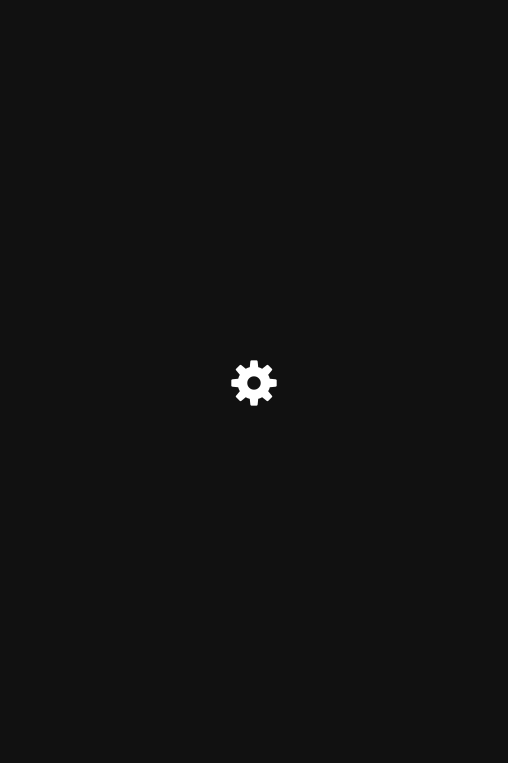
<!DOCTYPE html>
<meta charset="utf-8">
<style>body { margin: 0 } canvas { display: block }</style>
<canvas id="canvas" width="508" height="763"></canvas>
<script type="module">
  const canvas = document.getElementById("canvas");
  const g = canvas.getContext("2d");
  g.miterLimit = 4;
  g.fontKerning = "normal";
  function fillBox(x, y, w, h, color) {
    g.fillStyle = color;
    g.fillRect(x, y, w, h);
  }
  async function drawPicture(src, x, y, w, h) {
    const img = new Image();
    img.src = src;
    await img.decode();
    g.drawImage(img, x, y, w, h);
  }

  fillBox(0, 0, 508, 763, "#111111");
  await drawPicture("pic1.png", 231, 360, 46, 46);
</script>
